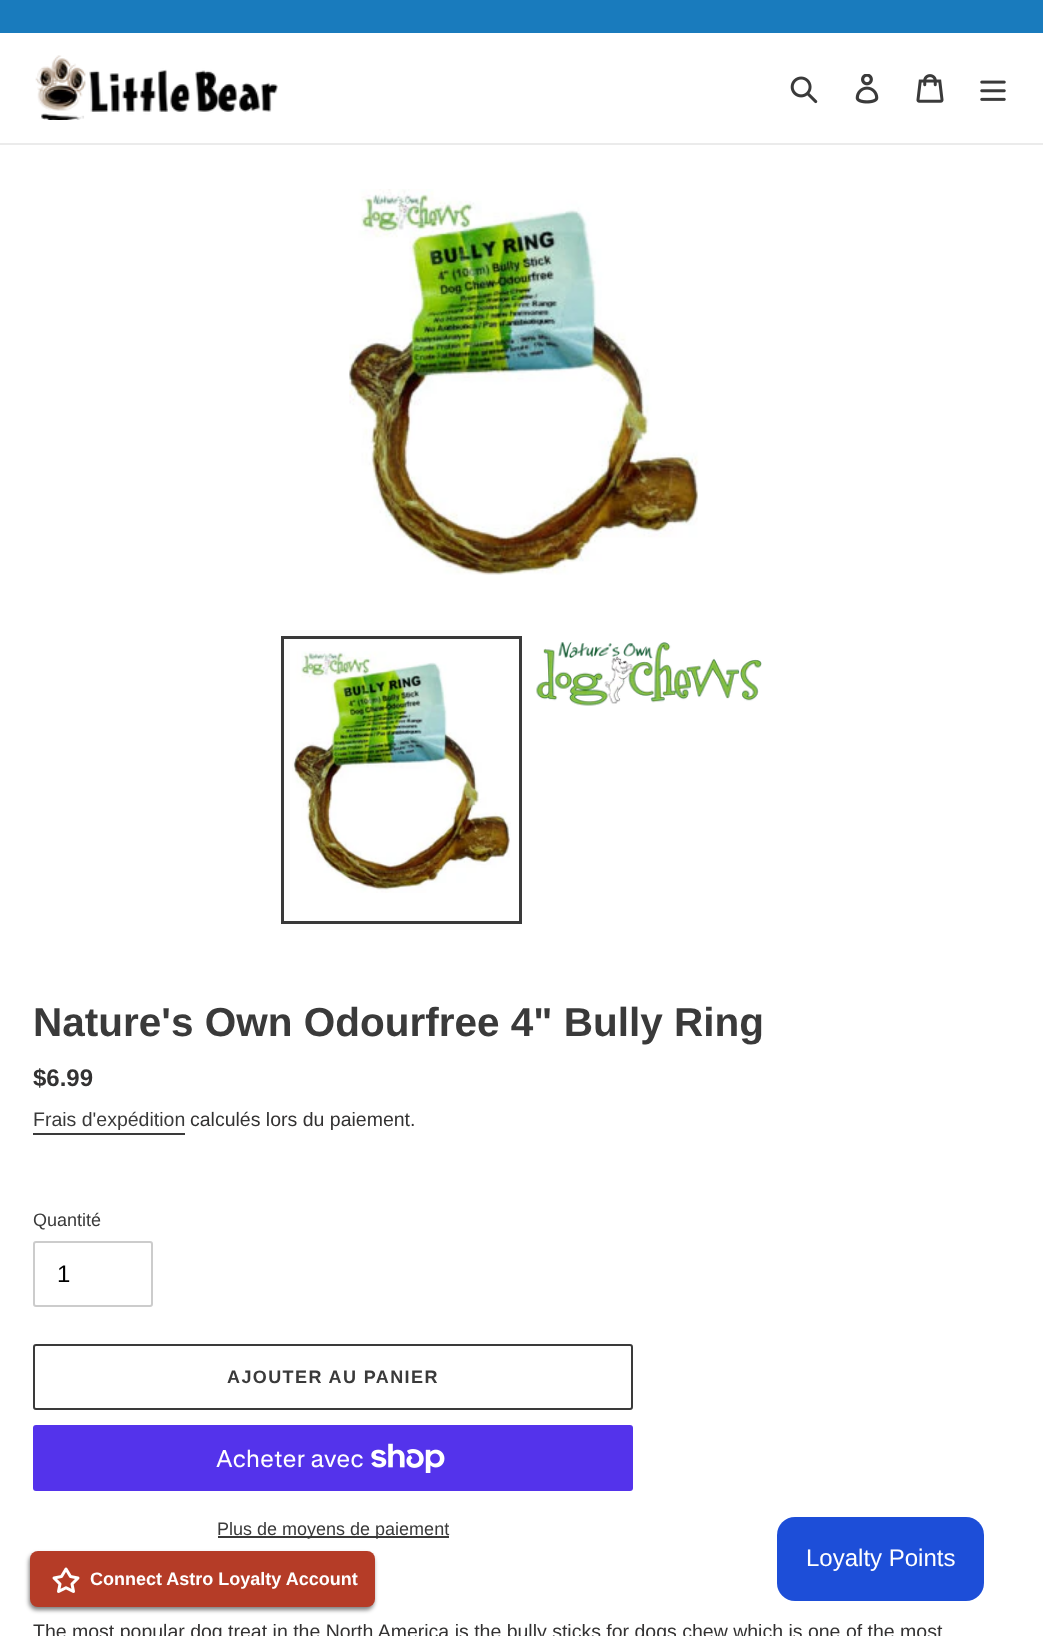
<!DOCTYPE html>
<meta charset="utf-8">
<style>body { margin: 0 } canvas { display: block }</style>
<canvas id="canvas" width="1043" height="1636"></canvas>
<script type="module">
  const canvas = document.getElementById("canvas");
  const g = canvas.getContext("2d");
  g.miterLimit = 4;
  g.fontKerning = "normal";
  function drawText(s, x, y, [font, color]) {
    g.font = font;
    g.fillStyle = color;
    g.fillText(s, x, y);
  }
  function fillBox(x, y, w, h, color) {
    g.fillStyle = color;
    g.fillRect(x, y, w, h);
  }
  function fillRounded(x, y, w, h, r, color) {
    g.fillStyle = color;
    g.beginPath();
    g.roundRect(x, y, w, h, r);
    g.fill();
  }
  async function drawPicture(src, x, y, w, h) {
    const img = new Image();
    img.src = src;
    await img.decode();
    g.drawImage(img, x, y, w, h);
  }

  const s1 = ["bold 40.5px Liberation Sans", "#3A3A3A"];
  const s2 = ["bold 24px Liberation Sans", "#333232"];
  const s3 = ["19.5px Liberation Sans", "#3A3A3A"];
  const s4 = ["19.5px Liberation Sans", "#333232"];
  const s5 = ["18px Liberation Sans", "#3A3A3A"];
  const s6 = ["24px Liberation Sans", "#000000"];
  const s7 = ["bold 18px Liberation Sans", "#3A3A3A"];
  const s8 = ["24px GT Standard", "#FFFFFF"];
  const s9 = ["24px Liberation Sans", "#FFFFFF"];
  const s10 = ["bold 18px Liberation Sans", "#FFFFFF"];

  fillBox(0, 0, 1043, 1636, "#FFFFFF");
  fillBox(0, 0, 1043, 33, "#197BBD");
  fillBox(0, 143, 1043, 2, "#EBEBEB");
  await drawPicture("pic1.png", 35, 55, 243, 65);
  await drawPicture("pic2.png", 790, 76, 28, 28);
  await drawPicture("pic3.png", 855, 74, 24, 30);
  await drawPicture("pic4.png", 916, 74, 28, 29);
  await drawPicture("pic5.png", 980, 80, 26, 21);
  await drawPicture("pic6.png", 349, 189, 350, 386);
  g.strokeStyle = "#3A3A3A";
  g.lineWidth = 3;
  g.strokeRect(282.5, 637.5, 238, 285);
  await drawPicture("pic7.png", 292, 651, 219, 242);
  await drawPicture("pic8.png", 536, 642, 226, 64);
  drawText("Nature's Own Odourfree 4\" Bully Ring", 33, 1036, s1);
  drawText("$6.99", 33, 1086, s2);
  drawText("Frais d'expédition", 33, 1126, s3);
  fillBox(33, 1133, 152, 2, "#3A3A3A");
  drawText("calculés lors du paiement.", 190, 1126, s4);
  drawText("Quantité", 33, 1226, s5);
  g.beginPath();
  g.roundRect(34, 1242, 118, 64, 2);
  g.strokeStyle = "#CCCCCC";
  g.lineWidth = 2;
  g.stroke();
  drawText("1", 57, 1282, s6);
  g.beginPath();
  g.roundRect(34, 1345, 598, 64, 2);
  g.strokeStyle = "#3A3A3A";
  g.stroke();
  g.letterSpacing = "1.4px";
  drawText("AJOUTER AU PANIER", 227, 1383, s7);
  fillRounded(33, 1425, 600, 66, 3, "#5433EB");
  g.letterSpacing = "0px";
  drawText("Acheter avec", 216, 1467, s8);
  await drawPicture("pic9.png", 371, 1443, 74, 30);
  fillBox(218, 1536, 231, 2, "#3A3A3A");
  drawText("Plus de moyens de paiement", 217, 1535, s5);
  drawText("The most popular dog treat in the North America is the bully sticks for dogs chew which is one of the most", 33, 1638, s4);
  fillRounded(777, 1517, 207, 84, 18, "#1D4ED8");
  drawText("Loyalty Points", 806, 1566, s9);
  g.fillStyle = "rgba(0, 0, 0, 0.5)";
  g.filter = "blur(2px)";
  g.beginPath();
  g.roundRect(29, 1554, 345, 56, 8);
  g.fill();
  g.filter = "none";
  fillRounded(30, 1551, 345, 56, 8, "#B53C27");
  await drawPicture("pic10.png", 52, 1567, 28, 26);
  drawText("Connect Astro Loyalty Account", 90, 1585, s10);
</script>
